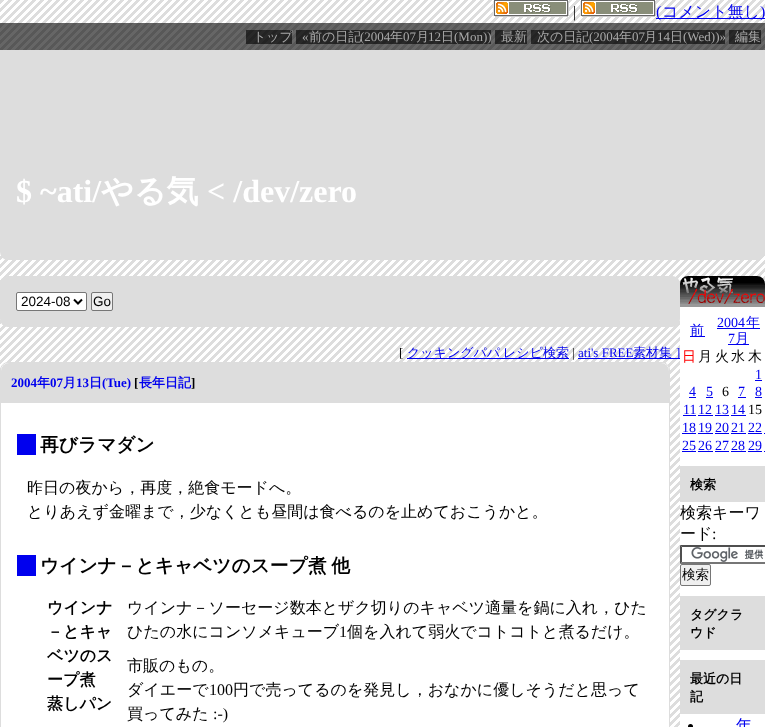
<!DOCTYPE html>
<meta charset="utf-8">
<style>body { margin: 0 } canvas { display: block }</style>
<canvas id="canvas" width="765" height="727"></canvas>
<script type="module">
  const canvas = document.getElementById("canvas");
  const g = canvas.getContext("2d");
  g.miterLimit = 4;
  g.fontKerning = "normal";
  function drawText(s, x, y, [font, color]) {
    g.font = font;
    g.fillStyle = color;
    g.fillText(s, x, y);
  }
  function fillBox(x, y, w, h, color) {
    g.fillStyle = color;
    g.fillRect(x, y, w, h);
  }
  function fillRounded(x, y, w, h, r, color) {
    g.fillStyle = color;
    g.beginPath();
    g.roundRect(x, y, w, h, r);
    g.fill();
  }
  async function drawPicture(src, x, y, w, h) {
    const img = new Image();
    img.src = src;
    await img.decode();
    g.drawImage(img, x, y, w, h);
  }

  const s1 = ["16px Liberation Serif", "#000000"];
  const s2 = ["16px Liberation Serif", "#0000EE"];
  const s3 = ["500 16px WenQuanYi Zen Hei", "#0000EE"];
  const s4 = ["500 13px WenQuanYi Zen Hei", "#A8A8A8"];
  const s5 = ["13px Liberation Serif", "#A8A8A8"];
  const s6 = ["bold 32px Liberation Serif", "#FFFFFF"];
  const s7 = ["bold 32px WenQuanYi Zen Hei", "#FFFFFF"];
  const s8 = ["13.5px Liberation Sans", "#000000"];
  const s9 = ["13px Liberation Serif", "#000000"];
  const s10 = ["500 13px WenQuanYi Zen Hei", "#0000EE"];
  const s11 = ["13px Liberation Serif", "#0000EE"];
  const s12 = ["bold 13px Liberation Serif", "#0000EE"];
  const s13 = ["bold 13px WenQuanYi Zen Hei", "#0000EE"];
  const s14 = ["bold 13px Liberation Serif", "#000000"];
  const s15 = ["bold 18.75px WenQuanYi Zen Hei", "#000000"];
  const s16 = ["500 16px WenQuanYi Zen Hei", "#000000"];
  const s17 = ["bold 16px WenQuanYi Zen Hei", "#000000"];
  const s18 = ["500 14px WenQuanYi Zen Hei", "#0000EE"];
  const s19 = ["14px Liberation Serif", "#0000EE"];
  const s20 = ["500 14px WenQuanYi Zen Hei", "#FF0000"];
  const s21 = ["500 14px WenQuanYi Zen Hei", "#000000"];
  const s22 = ["14px Liberation Serif", "#000000"];
  const s23 = ["bold 13px WenQuanYi Zen Hei", "#000000"];
  const s24 = ["500 13.5px WenQuanYi Zen Hei", "#000000"];

  fillBox(0, 0, 765, 727, "#FFFFFF");
  await drawPicture("pic1.png", 0, 0, 765, 727);
  await drawPicture("pic2.png", 493, 0, 76, 17);
  drawText("|", 573, 17, s1);
  await drawPicture("pic2.png", 580, 0, 76, 17);
  fillBox(656, 18, 109, 1, "#0000EE");
  drawText("(", 656, 17, s2);
  drawText("コメント無し", 662, 17, s3);
  drawText(")", 760, 17, s2);
  fillBox(0, 23, 765, 27, "rgba(0, 0, 0, 0.6)");
  fillBox(246, 30, 46, 14, "rgba(0, 0, 0, 0.6)");
  drawText("トップ", 253, 41, s4);
  fillBox(296, 30, 195, 14, "rgba(0, 0, 0, 0.6)");
  drawText("«", 302, 41, s5);
  drawText("前の日記", 309, 41, s4);
  drawText("(2004", 360, 41, s5);
  drawText("年", 390, 41, s4);
  drawText("07", 403, 41, s5);
  drawText("月", 416, 41, s4);
  drawText("12", 428, 41, s5);
  drawText("日", 441, 41, s4);
  drawText("(Mon))", 454, 41, s5);
  fillBox(495, 30, 32, 14, "rgba(0, 0, 0, 0.6)");
  drawText("最新", 501, 41, s4);
  fillBox(531, 30, 194, 14, "rgba(0, 0, 0, 0.6)");
  drawText("次の日記", 537, 41, s4);
  drawText("(2004", 589, 41, s5);
  drawText("年", 619, 41, s4);
  drawText("07", 632, 41, s5);
  drawText("月", 644, 41, s4);
  drawText("14", 657, 41, s5);
  drawText("日", 670, 41, s4);
  drawText("(Wed))»", 683, 41, s5);
  fillBox(729, 30, 32, 14, "rgba(0, 0, 0, 0.6)");
  drawText("編集", 735, 41, s4);
  g.fillStyle = "#DDDDDD";
  g.beginPath();
  g.roundRect(0, 50, 765, 210, [0, 0, 8, 8]);
  g.fill();
  drawText("$ ~ati/", 16, 202, s6);
  drawText("やる気", 101, 202, s7);
  drawText("< /dev/zero", 207, 202, s6);
  fillRounded(0, 276, 680, 51, 8, "#DDDDDD");
  g.fillStyle = "#FFFFFF";
  g.beginPath();
  g.roundRect(16.5, 292.5, 70, 18, 1.5);
  g.fill();
  g.strokeStyle = "#767676";
  g.stroke();
  g.beginPath();
  g.moveTo(74, 299.5);
  g.lineTo(78, 303.5);
  g.lineTo(82, 299.5);
  g.strokeStyle = "#000000";
  g.lineWidth = 2;
  g.stroke();
  drawText("2024-08", 21, 306, s8);
  g.fillStyle = "#EFEFEF";
  g.beginPath();
  g.roundRect(91.5, 292.5, 21, 18, 1.5);
  g.fill();
  g.strokeStyle = "#767676";
  g.lineWidth = 1;
  g.stroke();
  drawText("Go", 93, 306, s8);
  drawText("[", 399, 357, s9);
  fillBox(407, 358, 162, 1, "#0000EE");
  g.wordSpacing = "-1px";
  drawText("クッキングパパ レシピ検索", 407, 357, s10);
  g.wordSpacing = "0px";
  drawText("|", 572, 357, s9);
  drawText("ati's FREE", 578, 357, s11);
  fillBox(578, 358, 102, 1, "#0000EE");
  drawText("素材集", 633, 357, s10);
  drawText("]", 676, 357, s11);
  g.fillStyle = "#FFFFFF";
  g.beginPath();
  g.roundRect(0.5, 362.5, 669, 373, 7.5);
  g.fill();
  g.strokeStyle = "#DDDDDD";
  g.stroke();
  g.fillStyle = "#DDDDDD";
  g.beginPath();
  g.roundRect(1, 363, 668, 40, [8, 8, 0, 0]);
  g.fill();
  drawText("2004", 11, 387, s12);
  drawText("年", 37, 387, s13);
  drawText("07", 50, 387, s12);
  drawText("月", 63, 387, s13);
  drawText("13", 76, 387, s12);
  drawText("日", 89, 387, s13);
  drawText("(Tue)", 102, 387, s12);
  drawText("[", 134, 387, s14);
  drawText("長年日記", 139, 387, s13);
  drawText("]", 191, 387, s14);
  fillBox(17, 434, 19, 21, "#0000EE");
  drawText("再びラマダン", 40, 451, s15);
  drawText("昨日の夜から，再度，絶食モードへ。", 27, 493, s16);
  drawText("とりあえず金曜まで，少なくとも昼間は食べるのを止めておこうかと。", 27, 517, s16);
  fillBox(17, 555, 19, 21, "#0000EE");
  g.wordSpacing = "-1px";
  drawText("ウインナ－とキャベツのスープ煮 他", 40, 572, s15);
  g.wordSpacing = "0px";
  drawText("ウインナ", 47, 613, s17);
  drawText("－とキャ", 47, 637, s17);
  drawText("ベツのス", 47, 661, s17);
  drawText("ープ煮", 47, 685, s17);
  drawText("ウインナ－ソーセージ数本とザク切りのキャベツ適量を鍋に入れ，ひた", 127, 613, s16);
  drawText("ひたの水にコンソメキューブ", 127, 637, s16);
  drawText("1", 339, 637, s1);
  drawText("個を入れて弱火でコトコトと煮るだけ。", 347, 637, s16);
  drawText("蒸しパン", 47, 709, s17);
  drawText("市販のもの。", 127, 671, s16);
  drawText("ダイエーで", 127, 695, s16);
  drawText("100", 209, 695, s1);
  drawText("円で売ってるのを発見し，おなかに優しそうだと思って", 233, 695, s16);
  drawText("買ってみた", 127, 719, s16);
  drawText(":-)", 213, 719, s1);
  fillRounded(680, 276, 85, 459, 8, "#FFFFFF");
  await drawPicture("pic3.png", 680, 276, 85, 31);
  fillBox(690, 336, 15, 1, "#0000EE");
  drawText("前", 690, 335, s18);
  drawText("2004", 717, 327, s19);
  fillBox(717, 328, 43, 1, "#0000EE");
  drawText("年", 746, 327, s18);
  drawText("7", 728, 343, s19);
  fillBox(728, 344, 21, 1, "#0000EE");
  drawText("月", 735, 343, s18);
  drawText("日", 682, 361, s20);
  drawText("月", 698, 361, s21);
  drawText("火", 715, 361, s21);
  drawText("水", 731, 361, s21);
  drawText("木", 748, 361, s21);
  drawText("1", 755, 379, s19);
  fillBox(755, 380, 7, 1, "#0000EE");
  drawText("4", 689, 396, s19);
  fillBox(689, 397, 7, 1, "#0000EE");
  drawText("5", 706, 396, s19);
  fillBox(706, 397, 7, 1, "#0000EE");
  drawText("6", 722, 396, s22);
  drawText("7", 738, 396, s19);
  fillBox(738, 397, 8, 1, "#0000EE");
  drawText("8", 755, 396, s19);
  fillBox(755, 397, 7, 1, "#0000EE");
  drawText("11", 683, 414, s19);
  fillBox(683, 415, 13, 1, "#0000EE");
  drawText("12", 698, 414, s19);
  fillBox(698, 415, 15, 1, "#0000EE");
  drawText("13", 715, 414, s19);
  fillBox(715, 415, 14, 1, "#0000EE");
  drawText("14", 731, 414, s19);
  fillBox(731, 415, 15, 1, "#0000EE");
  drawText("15", 748, 414, s22);
  drawText("18", 682, 432, s19);
  fillBox(682, 433, 14, 1, "#0000EE");
  drawText("19", 698, 432, s19);
  fillBox(698, 433, 15, 1, "#0000EE");
  drawText("20", 715, 432, s19);
  fillBox(715, 433, 14, 1, "#0000EE");
  drawText("21", 731, 432, s19);
  fillBox(731, 433, 15, 1, "#0000EE");
  drawText("22", 748, 432, s19);
  fillBox(748, 433, 14, 1, "#0000EE");
  fillBox(764, 433, 1, 1, "#0000EE");
  drawText("25", 682, 450, s19);
  fillBox(682, 451, 14, 1, "#0000EE");
  drawText("26", 698, 450, s19);
  fillBox(698, 451, 15, 1, "#0000EE");
  drawText("27", 715, 450, s19);
  fillBox(715, 451, 14, 1, "#0000EE");
  drawText("28", 731, 450, s19);
  fillBox(731, 451, 15, 1, "#0000EE");
  drawText("29", 748, 450, s19);
  fillBox(748, 451, 14, 1, "#0000EE");
  fillBox(764, 451, 1, 1, "#0000EE");
  fillBox(680, 466, 85, 36, "#DDDDDD");
  drawText("検索", 690, 489, s23);
  drawText("検索キーワ", 680, 518, s16);
  drawText("ード", 680, 539, s16);
  drawText(":", 712, 539, s1);
  await drawPicture("pic4.png", 691, 547, 73, 15);
  g.fillStyle = "#4F4F4F";
  g.beginPath();
  g.moveTo(680, 545);
  g.lineTo(765, 545);
  g.lineTo(765, 547);
  g.lineTo(682, 547);
  g.closePath();
  g.fill();
  g.fillStyle = "#767676";
  g.beginPath();
  g.moveTo(765, 564);
  g.lineTo(680, 564);
  g.lineTo(682, 562);
  g.lineTo(765, 562);
  g.closePath();
  g.fill();
  g.fillStyle = "#4F4F4F";
  g.beginPath();
  g.moveTo(680, 564);
  g.lineTo(680, 545);
  g.lineTo(682, 547);
  g.lineTo(682, 562);
  g.closePath();
  g.fill();
  g.fillStyle = "#EFEFEF";
  g.beginPath();
  g.roundRect(680.5, 564.5, 30, 21, 1.5);
  g.fill();
  g.strokeStyle = "#767676";
  g.stroke();
  drawText("検索", 682, 579, s24);
  fillBox(680, 596, 85, 54, "#DDDDDD");
  drawText("タグクラ", 690, 619, s23);
  drawText("ウド", 690, 637, s23);
  fillBox(680, 660, 85, 54, "#DDDDDD");
  drawText("最近の日", 690, 683, s23);
  drawText("記", 690, 701, s23);
  g.beginPath();
  g.arc(690.5, 726.5, 2.5, 0, Math.PI * 2);
  g.fill();
  drawText("年", 736, 731, s3);
</script>
